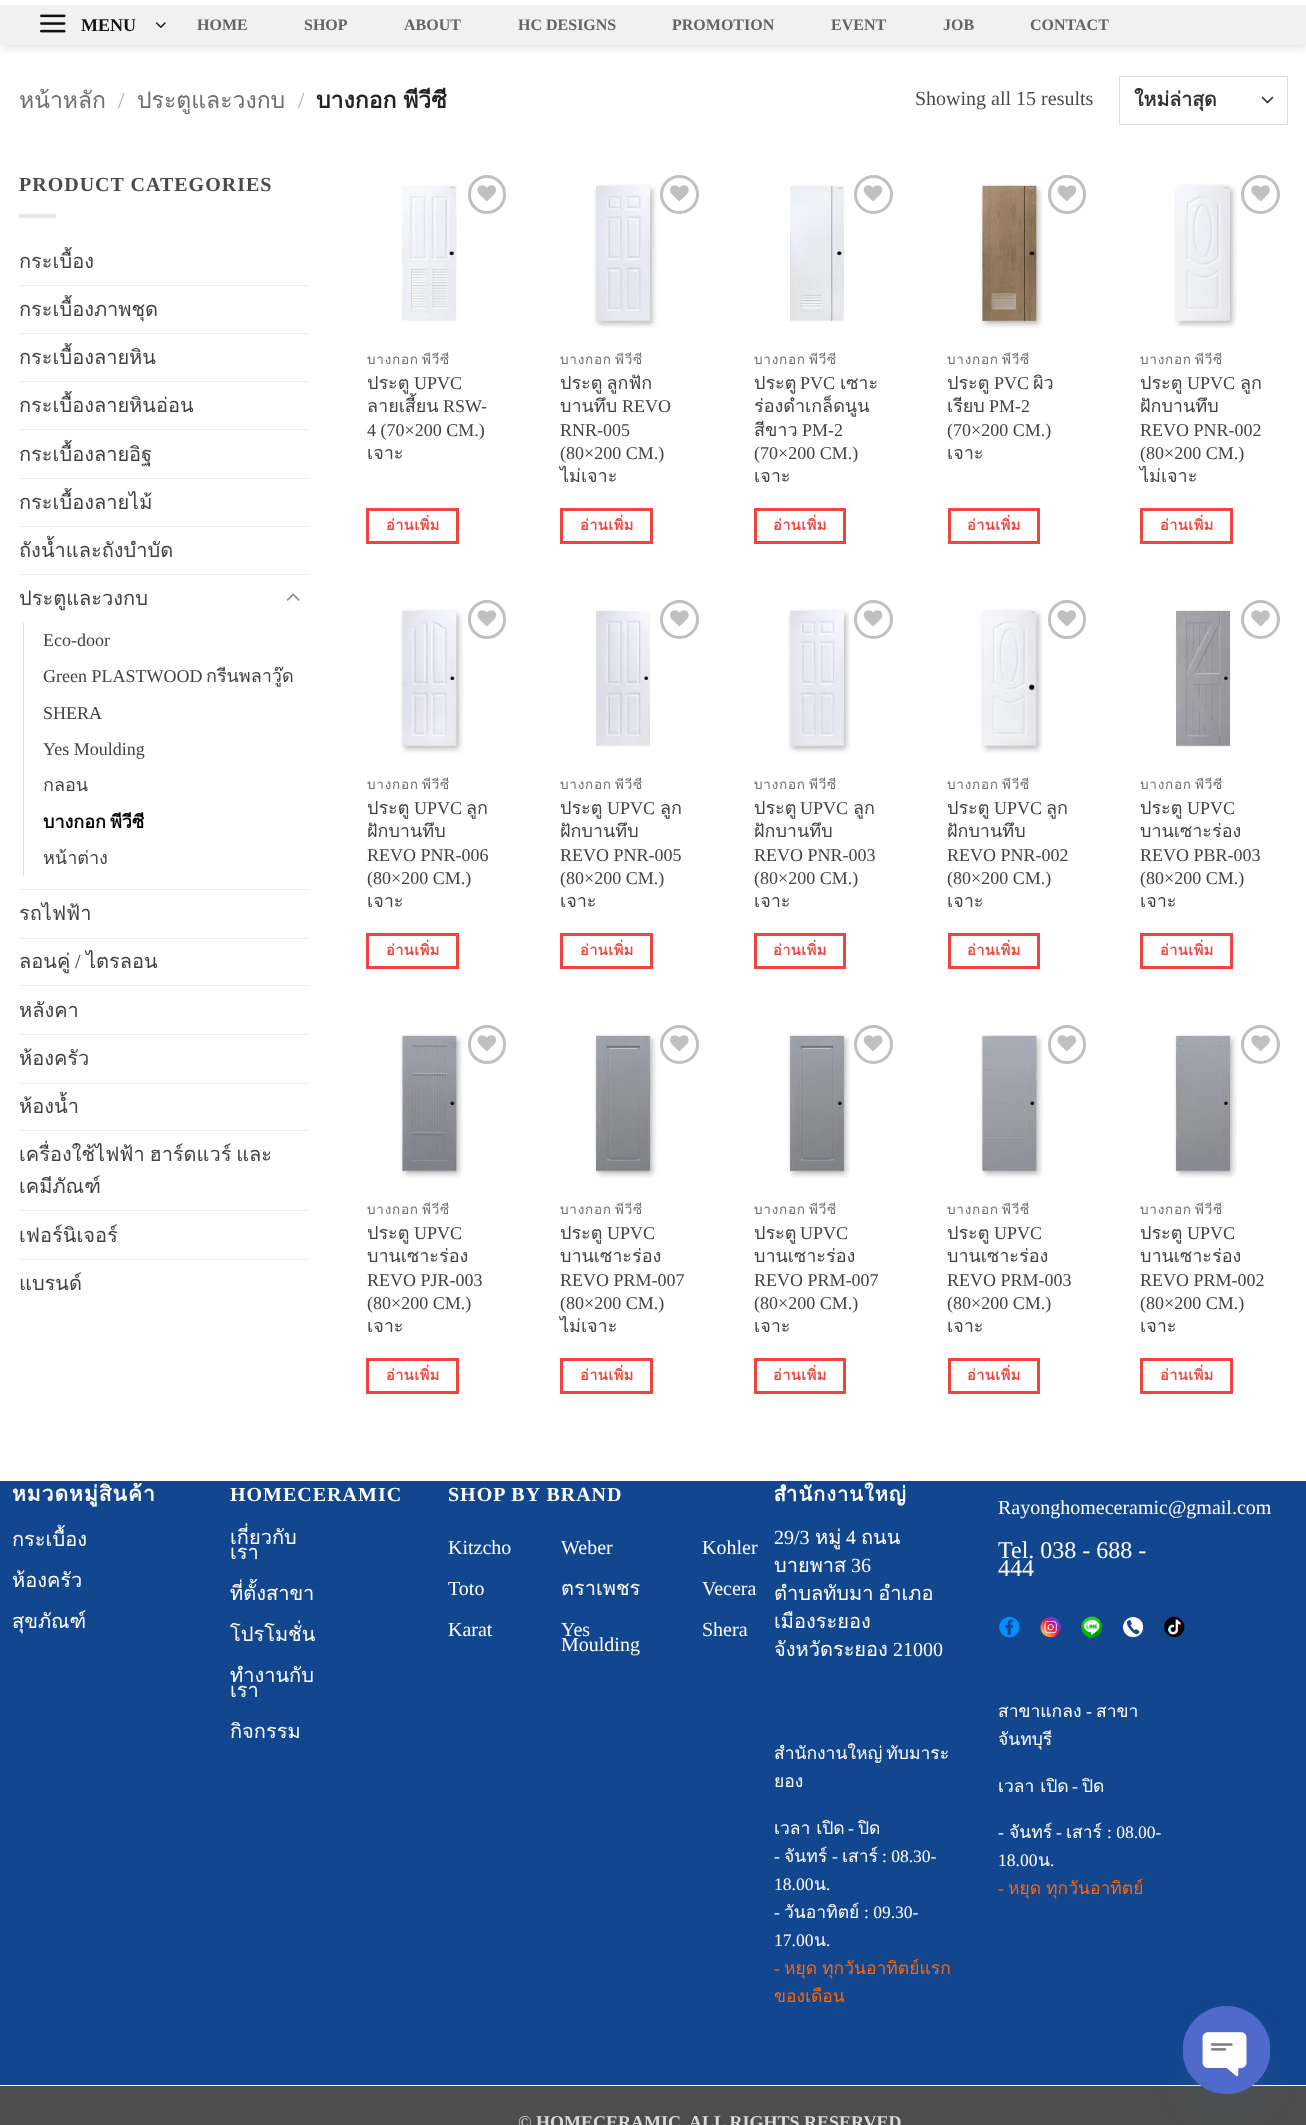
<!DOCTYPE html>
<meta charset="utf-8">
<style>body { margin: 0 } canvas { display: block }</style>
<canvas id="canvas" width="1306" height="2125"></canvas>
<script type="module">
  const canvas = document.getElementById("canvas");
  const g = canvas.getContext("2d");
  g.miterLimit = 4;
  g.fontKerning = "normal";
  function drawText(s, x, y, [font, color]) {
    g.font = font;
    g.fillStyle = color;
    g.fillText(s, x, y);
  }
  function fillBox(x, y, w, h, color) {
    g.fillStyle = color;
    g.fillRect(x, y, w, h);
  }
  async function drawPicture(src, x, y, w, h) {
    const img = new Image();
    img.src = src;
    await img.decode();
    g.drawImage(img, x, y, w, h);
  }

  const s1 = ["bold 18px Liberation Serif", "#111111"];
  const s2 = ["bold 16px Liberation Serif", "#636363"];
  const s3 = ["23px Loma", "#6E6E6E"];
  const s4 = ["23px Liberation Serif", "#B2B2B2"];
  const s5 = ["bold 23px Loma", "#222222"];
  const s6 = ["20px Liberation Serif", "#4A4A4A"];
  const s7 = ["bold 19.5px Loma", "#333333"];
  const s8 = ["bold 20px Liberation Serif", "#4A4A4A"];
  const s9 = ["20px Loma", "#424242"];
  const s10 = ["18px Liberation Serif", "#424242"];
  const s11 = ["18px Loma", "#424242"];
  const s12 = ["bold 18px Loma", "#000000"];
  const s13 = ["20px Liberation Serif", "#424242"];
  const s14 = ["13.5px Loma", "#6E6E6E"];
  const s15 = ["bold 14.5px Loma", "#EF453E"];
  const s16 = ["bold 21px Loma", "#FFFFFF"];
  const s17 = ["20px Loma", "#FFFFFF"];
  const s18 = ["bold 20px Liberation Serif", "#FFFFFF"];
  const s19 = ["20px Liberation Serif", "#FFFFFF"];
  const s20 = ["bold 20px Loma", "#FFFFFF"];
  const s21 = ["17.5px Loma", "#FFFFFF"];
  const s22 = ["17.5px Liberation Serif", "#FFFFFF"];
  const s23 = ["17.5px Liberation Serif", "#FF6600"];
  const s24 = ["17.5px Loma", "#FF6600"];
  const s25 = ["24px Liberation Serif", "#FFFFFF"];
  const s26 = ["18px Liberation Serif", "#DBDBDB"];
  const s27 = ["bold 18px Liberation Serif", "#DBDBDB"];

  fillBox(0, 0, 1306, 2125, "#FFFFFF");
  g.save();
  g.beginPath();
  g.rect(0, 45, 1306, 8);
  g.clip();
  g.fillStyle = "rgba(0, 0, 0, 0.15)";
  g.filter = "blur(6px)";
  g.beginPath();
  g.rect(1, -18, 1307, 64);
  g.fill();
  g.filter = "none";
  g.restore();
  fillBox(0, 5, 1306, 40, "#F1F1F1");
  await drawPicture("pic1.png", 40, 14, 26, 19);
  drawText("MENU", 81, 31, s1);
  await drawPicture("pic2.png", 155, 22, 11, 6);
  drawText("HOME", 197, 30, s2);
  drawText("SHOP", 304, 30, s2);
  drawText("ABOUT", 404, 30, s2);
  drawText("HC DESIGNS", 518, 30, s2);
  drawText("PROMOTION", 672, 30, s2);
  drawText("EVENT", 831, 30, s2);
  drawText("JOB", 943, 30, s2);
  drawText("CONTACT", 1030, 30, s2);
  drawText("หน้าหลัก", 19, 108, s3);
  drawText("/", 118, 108, s4);
  drawText("ประตูและวงกบ", 137, 108, s3);
  drawText("/", 298, 108, s4);
  g.wordSpacing = "-1px";
  drawText("บางกอก พีวีซี", 316, 108, s5);
  g.wordSpacing = "0px";
  drawText("Showing all 15 results", 915, 105, s6);
  g.beginPath();
  g.moveTo(1262.5, 97.5);
  g.lineTo(1267.5, 102.5);
  g.lineTo(1272.5, 97.5);
  g.strokeStyle = "#333333";
  g.lineWidth = 1.7;
  g.lineCap = "round";
  g.lineJoin = "round";
  g.stroke();
  g.strokeStyle = "#DDDDDD";
  g.lineWidth = 1;
  g.lineJoin = "miter";
  g.strokeRect(1119.5, 76.5, 168, 48);
  drawText("ใหม่ล่าสุด", 1134, 106, s7);
  g.letterSpacing = "1px";
  drawText("PRODUCT CATEGORIES", 19, 191, s8);
  fillBox(19, 214, 37, 4, "#E6E6E6");
  g.letterSpacing = "0px";
  drawText("กระเบื้อง", 19, 268, s9);
  fillBox(19, 285, 289, 1, "#ECECEC");
  drawText("กระเบื้องภาพชุด", 19, 316, s9);
  fillBox(19, 333, 289, 1, "#ECECEC");
  drawText("กระเบื้องลายหิน", 19, 364, s9);
  fillBox(19, 381, 289, 1, "#ECECEC");
  drawText("กระเบื้องลายหินอ่อน", 19, 412, s9);
  fillBox(19, 429, 289, 1, "#ECECEC");
  drawText("กระเบื้องลายอิฐ", 19, 461, s9);
  fillBox(19, 478, 289, 1, "#ECECEC");
  drawText("กระเบื้องลายไม้", 19, 509, s9);
  fillBox(19, 526, 289, 1, "#ECECEC");
  drawText("ถังน้ำและถังบำบัด", 19, 557, s9);
  fillBox(19, 574, 289, 1, "#ECECEC");
  drawText("ประตูและวงกบ", 19, 605, s9);
  await drawPicture("pic3.png", 286, 593, 14, 8);
  fillBox(23, 623, 1, 253, "#DDDDDD");
  drawText("Eco-door", 43, 646, s10);
  drawText("Green PLASTWOOD", 43, 682, s10);
  drawText("กรีนพลาวู๊ด", 206, 682, s11);
  drawText("SHERA", 43, 719, s10);
  drawText("Yes Moulding", 43, 755, s10);
  drawText("กลอน", 43, 791, s11);
  g.wordSpacing = "-2px";
  drawText("บางกอก พีวีซี", 43, 828, s12);
  g.wordSpacing = "0px";
  drawText("หน้าต่าง", 43, 864, s11);
  fillBox(19, 889, 289, 1, "#ECECEC");
  drawText("รถไฟฟ้า", 19, 920, s9);
  fillBox(19, 938, 289, 1, "#ECECEC");
  drawText("ลอนคู่", 19, 968, s9);
  drawText("/", 75, 968, s13);
  drawText("ไตรลอน", 86, 968, s9);
  fillBox(19, 985, 289, 1, "#ECECEC");
  drawText("หลังคา", 19, 1017, s9);
  fillBox(19, 1034, 289, 1, "#ECECEC");
  drawText("ห้องครัว", 19, 1065, s9);
  fillBox(19, 1083, 289, 1, "#ECECEC");
  drawText("ห้องน้ำ", 19, 1113, s9);
  fillBox(19, 1130, 289, 1, "#ECECEC");
  g.wordSpacing = "-2px";
  drawText("เครื่องใช้ไฟฟ้า ฮาร์ดแวร์ และ", 19, 1161, s9);
  g.wordSpacing = "0px";
  drawText("เคมีภัณฑ์", 19, 1193, s9);
  fillBox(19, 1210, 289, 1, "#ECECEC");
  drawText("เฟอร์นิเจอร์", 19, 1242, s9);
  fillBox(19, 1259, 289, 1, "#ECECEC");
  drawText("แบรนด์", 19, 1290, s9);
  await drawPicture("pic4.png", 402, 185, 55, 137);
  g.beginPath();
  g.roundRect(469.5, 176.5, 35, 36, 17.5);
  g.strokeStyle = "#C0C0C0";
  g.lineWidth = 3;
  g.stroke();
  await drawPicture("pic5.png", 477, 185, 20, 17);
  g.letterSpacing = "0.75px";
  g.wordSpacing = "-2px";
  drawText("บางกอก พีวีซี", 367, 364, s14);
  g.letterSpacing = "0px";
  g.wordSpacing = "0px";
  drawText("ประตู", 367, 389, s11);
  drawText("UPVC", 414, 389, s10);
  drawText("ลายเสี้ยน", 367, 412, s11);
  drawText("RSW-", 443, 412, s10);
  drawText("4 (70×200 CM.)", 367, 436, s10);
  drawText("เจาะ", 367, 459, s11);
  g.strokeStyle = "#EF453E";
  g.strokeRect(367.5, 509.5, 90, 33);
  g.letterSpacing = "0.5px";
  drawText("อ่านเพิ่ม", 386, 530, s15);
  await drawPicture("pic6.png", 593, 183, 64, 145);
  g.beginPath();
  g.arc(679.5, 194.5, 18, 0, Math.PI * 2);
  g.strokeStyle = "#C0C0C0";
  g.stroke();
  await drawPicture("pic7.png", 670, 185, 19, 17);
  g.letterSpacing = "0.75px";
  g.wordSpacing = "-2px";
  drawText("บางกอก พีวีซี", 560, 364, s14);
  g.letterSpacing = "0px";
  drawText("ประตู ลูกฟัก", 560, 389, s11);
  g.wordSpacing = "0px";
  drawText("บานทึบ", 560, 412, s11);
  drawText("REVO", 622, 412, s10);
  drawText("RNR-005", 560, 436, s10);
  drawText("(80×200 CM.)", 560, 459, s10);
  drawText("ไม่เจาะ", 560, 482, s11);
  g.strokeStyle = "#EF453E";
  g.strokeRect(561.5, 509.5, 90, 33);
  g.letterSpacing = "0.5px";
  drawText("อ่านเพิ่ม", 580, 530, s15);
  await drawPicture("pic8.png", 790, 185, 55, 137);
  g.beginPath();
  g.arc(873.5, 194.5, 18, 0, Math.PI * 2);
  g.strokeStyle = "#C0C0C0";
  g.stroke();
  await drawPicture("pic9.png", 863, 185, 20, 17);
  g.letterSpacing = "0.75px";
  g.wordSpacing = "-2px";
  drawText("บางกอก พีวีซี", 754, 364, s14);
  g.letterSpacing = "0px";
  g.wordSpacing = "0px";
  drawText("ประตู", 754, 389, s11);
  drawText("PVC", 800, 389, s10);
  drawText("เซาะ", 840, 389, s11);
  drawText("ร่องดำเกล็ดนูน", 754, 412, s11);
  drawText("สีขาว", 754, 436, s11);
  drawText("PM-2", 802, 436, s10);
  drawText("(70×200 CM.)", 754, 459, s10);
  drawText("เจาะ", 754, 482, s11);
  g.strokeStyle = "#EF453E";
  g.strokeRect(755.5, 509.5, 89, 33);
  g.letterSpacing = "0.5px";
  drawText("อ่านเพิ่ม", 773, 530, s15);
  await drawPicture("pic10.png", 980, 183, 64, 146);
  g.beginPath();
  g.roundRect(1049.5, 176.5, 35, 36, 17.5);
  g.strokeStyle = "#C0C0C0";
  g.stroke();
  await drawPicture("pic5.png", 1057, 185, 20, 17);
  g.letterSpacing = "0.75px";
  g.wordSpacing = "-2px";
  drawText("บางกอก พีวีซี", 947, 364, s14);
  g.letterSpacing = "0px";
  g.wordSpacing = "0px";
  drawText("ประตู", 947, 389, s11);
  drawText("PVC", 994, 389, s10);
  drawText("ผิว", 1033, 389, s11);
  drawText("เรียบ", 947, 412, s11);
  drawText("PM-2", 989, 412, s10);
  drawText("(70×200 CM.)", 947, 436, s10);
  drawText("เจาะ", 947, 459, s11);
  g.strokeStyle = "#EF453E";
  g.strokeRect(949.5, 509.5, 89, 33);
  g.letterSpacing = "0.5px";
  drawText("อ่านเพิ่ม", 967, 530, s15);
  await drawPicture("pic11.png", 1174, 184, 63, 144);
  g.beginPath();
  g.arc(1260.5, 194.5, 18, 0, Math.PI * 2);
  g.strokeStyle = "#C0C0C0";
  g.stroke();
  await drawPicture("pic12.png", 1251, 185, 19, 17);
  g.letterSpacing = "0.75px";
  g.wordSpacing = "-2px";
  drawText("บางกอก พีวีซี", 1140, 364, s14);
  g.letterSpacing = "0px";
  g.wordSpacing = "0px";
  drawText("ประตู", 1140, 389, s11);
  drawText("UPVC", 1187, 389, s10);
  drawText("ลูก", 1240, 389, s11);
  drawText("ฝักบานทึบ", 1140, 412, s11);
  drawText("REVO PNR-002", 1140, 436, s10);
  drawText("(80×200 CM.)", 1140, 459, s10);
  drawText("ไม่เจาะ", 1140, 482, s11);
  g.strokeStyle = "#EF453E";
  g.strokeRect(1141.5, 509.5, 90, 33);
  g.letterSpacing = "0.5px";
  drawText("อ่านเพิ่ม", 1160, 530, s15);
  await drawPicture("pic13.png", 399, 608, 66, 146);
  g.beginPath();
  g.roundRect(469.5, 601.5, 35, 36, 17.5);
  g.strokeStyle = "#C0C0C0";
  g.stroke();
  await drawPicture("pic5.png", 477, 610, 20, 17);
  g.letterSpacing = "0.75px";
  g.wordSpacing = "-2px";
  drawText("บางกอก พีวีซี", 367, 789, s14);
  g.letterSpacing = "0px";
  g.wordSpacing = "0px";
  drawText("ประตู", 367, 814, s11);
  drawText("UPVC", 414, 814, s10);
  drawText("ลูก", 466, 814, s11);
  drawText("ฝักบานทึบ", 367, 837, s11);
  drawText("REVO PNR-006", 367, 861, s10);
  drawText("(80×200 CM.)", 367, 884, s10);
  drawText("เจาะ", 367, 907, s11);
  g.strokeStyle = "#EF453E";
  g.strokeRect(367.5, 934.5, 90, 33);
  g.letterSpacing = "0.5px";
  drawText("อ่านเพิ่ม", 386, 955, s15);
  await drawPicture("pic14.png", 596, 610, 55, 137);
  g.beginPath();
  g.arc(679.5, 619.5, 18, 0, Math.PI * 2);
  g.strokeStyle = "#C0C0C0";
  g.stroke();
  await drawPicture("pic7.png", 670, 610, 19, 17);
  g.letterSpacing = "0.75px";
  g.wordSpacing = "-2px";
  drawText("บางกอก พีวีซี", 560, 789, s14);
  g.letterSpacing = "0px";
  g.wordSpacing = "0px";
  drawText("ประตู", 560, 814, s11);
  drawText("UPVC", 607, 814, s10);
  drawText("ลูก", 660, 814, s11);
  drawText("ฝักบานทึบ", 560, 837, s11);
  drawText("REVO PNR-005", 560, 861, s10);
  drawText("(80×200 CM.)", 560, 884, s10);
  drawText("เจาะ", 560, 907, s11);
  g.strokeStyle = "#EF453E";
  g.strokeRect(561.5, 934.5, 90, 33);
  g.letterSpacing = "0.5px";
  drawText("อ่านเพิ่ม", 580, 955, s15);
  await drawPicture("pic15.png", 787, 608, 64, 145);
  g.beginPath();
  g.arc(873.5, 619.5, 18, 0, Math.PI * 2);
  g.strokeStyle = "#C0C0C0";
  g.stroke();
  await drawPicture("pic9.png", 863, 610, 20, 17);
  g.letterSpacing = "0.75px";
  g.wordSpacing = "-2px";
  drawText("บางกอก พีวีซี", 754, 789, s14);
  g.letterSpacing = "0px";
  g.wordSpacing = "0px";
  drawText("ประตู", 754, 814, s11);
  drawText("UPVC", 800, 814, s10);
  drawText("ลูก", 853, 814, s11);
  drawText("ฝักบานทึบ", 754, 837, s11);
  drawText("REVO PNR-003", 754, 861, s10);
  drawText("(80×200 CM.)", 754, 884, s10);
  drawText("เจาะ", 754, 907, s11);
  g.strokeStyle = "#EF453E";
  g.strokeRect(755.5, 934.5, 89, 33);
  g.letterSpacing = "0.5px";
  drawText("อ่านเพิ่ม", 773, 955, s15);
  await drawPicture("pic16.png", 980, 609, 64, 145);
  g.beginPath();
  g.roundRect(1049.5, 601.5, 35, 36, 17.5);
  g.strokeStyle = "#C0C0C0";
  g.stroke();
  await drawPicture("pic5.png", 1057, 610, 20, 17);
  g.letterSpacing = "0.75px";
  g.wordSpacing = "-2px";
  drawText("บางกอก พีวีซี", 947, 789, s14);
  g.letterSpacing = "0px";
  g.wordSpacing = "0px";
  drawText("ประตู", 947, 814, s11);
  drawText("UPVC", 994, 814, s10);
  drawText("ลูก", 1046, 814, s11);
  drawText("ฝักบานทึบ", 947, 837, s11);
  drawText("REVO PNR-002", 947, 861, s10);
  drawText("(80×200 CM.)", 947, 884, s10);
  drawText("เจาะ", 947, 907, s11);
  g.strokeStyle = "#EF453E";
  g.strokeRect(949.5, 934.5, 89, 33);
  g.letterSpacing = "0.5px";
  drawText("อ่านเพิ่ม", 967, 955, s15);
  await drawPicture("pic17.png", 1175, 610, 56, 137);
  g.beginPath();
  g.arc(1260.5, 619.5, 18, 0, Math.PI * 2);
  g.strokeStyle = "#C0C0C0";
  g.stroke();
  await drawPicture("pic12.png", 1251, 610, 19, 17);
  g.letterSpacing = "0.75px";
  g.wordSpacing = "-2px";
  drawText("บางกอก พีวีซี", 1140, 789, s14);
  g.letterSpacing = "0px";
  g.wordSpacing = "0px";
  drawText("ประตู", 1140, 814, s11);
  drawText("UPVC", 1187, 814, s10);
  drawText("บานเซาะร่อง", 1140, 837, s11);
  drawText("REVO PBR-003", 1140, 861, s10);
  drawText("(80×200 CM.)", 1140, 884, s10);
  drawText("เจาะ", 1140, 907, s11);
  g.strokeStyle = "#EF453E";
  g.strokeRect(1141.5, 934.5, 90, 33);
  g.letterSpacing = "0.5px";
  drawText("อ่านเพิ่ม", 1160, 955, s15);
  await drawPicture("pic18.png", 400, 1033, 64, 145);
  g.beginPath();
  g.roundRect(469.5, 1026.5, 35, 36, 17.5);
  g.strokeStyle = "#C0C0C0";
  g.stroke();
  await drawPicture("pic5.png", 477, 1035, 20, 17);
  g.letterSpacing = "0.75px";
  g.wordSpacing = "-2px";
  drawText("บางกอก พีวีซี", 367, 1214, s14);
  g.letterSpacing = "0px";
  g.wordSpacing = "0px";
  drawText("ประตู", 367, 1239, s11);
  drawText("UPVC", 414, 1239, s10);
  drawText("บานเซาะร่อง", 367, 1262, s11);
  drawText("REVO PJR-003", 367, 1286, s10);
  drawText("(80×200 CM.)", 367, 1309, s10);
  drawText("เจาะ", 367, 1332, s11);
  g.strokeStyle = "#EF453E";
  g.strokeRect(367.5, 1359.5, 90, 33);
  g.letterSpacing = "0.5px";
  drawText("อ่านเพิ่ม", 386, 1380, s15);
  await drawPicture("pic19.png", 594, 1033, 64, 145);
  g.beginPath();
  g.arc(679.5, 1044.5, 18, 0, Math.PI * 2);
  g.strokeStyle = "#C0C0C0";
  g.stroke();
  await drawPicture("pic7.png", 670, 1035, 19, 17);
  g.letterSpacing = "0.75px";
  g.wordSpacing = "-2px";
  drawText("บางกอก พีวีซี", 560, 1214, s14);
  g.letterSpacing = "0px";
  g.wordSpacing = "0px";
  drawText("ประตู", 560, 1239, s11);
  drawText("UPVC", 607, 1239, s10);
  drawText("บานเซาะร่อง", 560, 1262, s11);
  drawText("REVO PRM-007", 560, 1286, s10);
  drawText("(80×200 CM.)", 560, 1309, s10);
  drawText("ไม่เจาะ", 560, 1332, s11);
  g.strokeStyle = "#EF453E";
  g.strokeRect(561.5, 1359.5, 90, 33);
  g.letterSpacing = "0.5px";
  drawText("อ่านเพิ่ม", 580, 1380, s15);
  await drawPicture("pic20.png", 787, 1033, 65, 145);
  g.beginPath();
  g.arc(873.5, 1044.5, 18, 0, Math.PI * 2);
  g.strokeStyle = "#C0C0C0";
  g.stroke();
  await drawPicture("pic9.png", 863, 1035, 20, 17);
  g.letterSpacing = "0.75px";
  g.wordSpacing = "-2px";
  drawText("บางกอก พีวีซี", 754, 1214, s14);
  g.letterSpacing = "0px";
  g.wordSpacing = "0px";
  drawText("ประตู", 754, 1239, s11);
  drawText("UPVC", 800, 1239, s10);
  drawText("บานเซาะร่อง", 754, 1262, s11);
  drawText("REVO PRM-007", 754, 1286, s10);
  drawText("(80×200 CM.)", 754, 1309, s10);
  drawText("เจาะ", 754, 1332, s11);
  g.strokeStyle = "#EF453E";
  g.strokeRect(755.5, 1359.5, 89, 33);
  g.letterSpacing = "0.5px";
  drawText("อ่านเพิ่ม", 773, 1380, s15);
  await drawPicture("pic21.png", 980, 1033, 64, 146);
  g.beginPath();
  g.roundRect(1049.5, 1026.5, 35, 36, 17.5);
  g.strokeStyle = "#C0C0C0";
  g.stroke();
  await drawPicture("pic5.png", 1057, 1035, 20, 17);
  g.letterSpacing = "0.75px";
  g.wordSpacing = "-2px";
  drawText("บางกอก พีวีซี", 947, 1214, s14);
  g.letterSpacing = "0px";
  g.wordSpacing = "0px";
  drawText("ประตู", 947, 1239, s11);
  drawText("UPVC", 994, 1239, s10);
  drawText("บานเซาะร่อง", 947, 1262, s11);
  drawText("REVO PRM-003", 947, 1286, s10);
  drawText("(80×200 CM.)", 947, 1309, s10);
  drawText("เจาะ", 947, 1332, s11);
  g.strokeStyle = "#EF453E";
  g.strokeRect(949.5, 1359.5, 89, 33);
  g.letterSpacing = "0.5px";
  drawText("อ่านเพิ่ม", 967, 1380, s15);
  await drawPicture("pic22.png", 1173, 1033, 64, 145);
  g.beginPath();
  g.arc(1260.5, 1044.5, 18, 0, Math.PI * 2);
  g.strokeStyle = "#C0C0C0";
  g.stroke();
  await drawPicture("pic12.png", 1251, 1035, 19, 17);
  g.letterSpacing = "0.75px";
  g.wordSpacing = "-2px";
  drawText("บางกอก พีวีซี", 1140, 1214, s14);
  g.letterSpacing = "0px";
  g.wordSpacing = "0px";
  drawText("ประตู", 1140, 1239, s11);
  drawText("UPVC", 1187, 1239, s10);
  drawText("บานเซาะร่อง", 1140, 1262, s11);
  drawText("REVO PRM-002", 1140, 1286, s10);
  drawText("(80×200 CM.)", 1140, 1309, s10);
  drawText("เจาะ", 1140, 1332, s11);
  g.strokeStyle = "#EF453E";
  g.strokeRect(1141.5, 1359.5, 90, 33);
  g.letterSpacing = "0.5px";
  drawText("อ่านเพิ่ม", 1160, 1380, s15);
  fillBox(0, 1481, 1306, 604, "#12468F");
  g.letterSpacing = "1px";
  drawText("หมวดหมู่สินค้า", 12, 1501, s16);
  g.letterSpacing = "0px";
  drawText("กระเบื้อง", 12, 1546, s17);
  drawText("ห้องครัว", 12, 1587, s17);
  drawText("สุขภัณฑ์", 12, 1628, s17);
  g.letterSpacing = "1px";
  drawText("HOMECERAMIC", 230, 1501, s18);
  g.letterSpacing = "0px";
  drawText("เกี่ยวกับ", 230, 1544, s17);
  drawText("เรา", 230, 1559, s17);
  drawText("ที่ตั้งสาขา", 230, 1600, s17);
  drawText("โปรโมชั่น", 230, 1641, s17);
  drawText("ทำงานกับ", 230, 1682, s17);
  drawText("เรา", 230, 1697, s17);
  drawText("กิจกรรม", 230, 1738, s17);
  g.letterSpacing = "1px";
  drawText("SHOP BY BRAND", 448, 1501, s18);
  g.letterSpacing = "0px";
  drawText("Kitzcho", 448, 1554, s19);
  drawText("Toto", 448, 1595, s19);
  drawText("Karat", 448, 1636, s19);
  drawText("Weber", 561, 1554, s19);
  drawText("ตราเพชร", 561, 1595, s17);
  drawText("Yes", 561, 1636, s19);
  drawText("Moulding", 561, 1651, s19);
  drawText("Kohler", 702, 1554, s19);
  drawText("Vecera", 702, 1595, s19);
  drawText("Shera", 702, 1636, s19);
  g.letterSpacing = "1px";
  drawText("สำนักงานใหญ่", 774, 1501, s20);
  g.letterSpacing = "0px";
  drawText("29/3", 774, 1544, s19);
  drawText("หมู่", 815, 1544, s17);
  drawText("4", 846, 1544, s19);
  drawText("ถนน", 861, 1544, s17);
  drawText("บายพาส", 774, 1572, s17);
  drawText("36", 851, 1572, s19);
  g.wordSpacing = "-2px";
  drawText("ตำบลทับมา อำเภอ", 774, 1600, s17);
  g.wordSpacing = "0px";
  drawText("เมืองระยอง", 774, 1628, s17);
  drawText("จังหวัดระยอง", 774, 1656, s17);
  drawText("21000", 893, 1656, s19);
  g.wordSpacing = "-2px";
  drawText("สำนักงานใหญ่ ทับมาระ", 774, 1759, s21);
  g.wordSpacing = "0px";
  drawText("ยอง", 774, 1787, s21);
  drawText("เวลา เปิด", 774, 1834, s21);
  drawText("-", 848, 1834, s22);
  drawText("ปิด", 858, 1834, s21);
  drawText("-", 774, 1862, s22);
  drawText("จันทร์", 784, 1862, s21);
  drawText("เสาร์", 842, 1862, s21);
  drawText(": 08.30-", 882, 1862, s22);
  drawText("-", 832, 1862, s22);
  drawText("18.00", 774, 1890, s22);
  drawText("น", 814, 1890, s21);
  drawText(".", 826, 1890, s22);
  drawText("-", 774, 1918, s22);
  drawText("วันอาทิตย์", 784, 1918, s21);
  drawText(": 09.30-", 864, 1918, s22);
  drawText("17.00", 774, 1946, s22);
  drawText("น", 814, 1946, s21);
  drawText(".", 826, 1946, s22);
  drawText("-", 774, 1974, s23);
  g.wordSpacing = "-1px";
  drawText("หยุด ทุกวันอาทิตย์แรก", 784, 1974, s24);
  g.wordSpacing = "0px";
  drawText("ของเดือน", 774, 2002, s24);
  drawText("Rayonghomeceramic@gmail.com", 998, 1514, s19);
  drawText("Tel. 038 - 688 -", 998, 1558, s25);
  drawText("444", 998, 1576, s25);
  await drawPicture("pic23.png", 999, 1616, 21, 22);
  await drawPicture("pic24.png", 1040, 1616, 21, 22);
  await drawPicture("pic25.png", 1081, 1616, 22, 22);
  await drawPicture("pic26.png", 1122, 1616, 22, 22);
  await drawPicture("pic27.png", 1163, 1616, 22, 21);
  drawText("สาขาแกลง", 998, 1717, s21);
  drawText("-", 1086, 1717, s22);
  drawText("สาขา", 1096, 1717, s21);
  drawText("จันทบุรี", 998, 1745, s21);
  drawText("เวลา เปิด", 998, 1792, s21);
  drawText("-", 1072, 1792, s22);
  drawText("ปิด", 1082, 1792, s21);
  drawText("-", 998, 1838, s22);
  drawText("จันทร์", 1009, 1838, s21);
  drawText("-", 1056, 1838, s22);
  drawText("เสาร์", 1066, 1838, s21);
  drawText(": 08.00-", 1107, 1838, s22);
  drawText("18.00", 998, 1866, s22);
  drawText("น", 1038, 1866, s21);
  drawText(".", 1050, 1866, s22);
  drawText("-", 998, 1894, s23);
  g.wordSpacing = "-1px";
  drawText("หยุด ทุกวันอาทิตย์", 1008, 1894, s24);
  fillBox(0, 2086, 1306, 39, "#4D4D4D");
  g.wordSpacing = "0px";
  drawText("©", 518, 2128, s26);
  drawText("HOMECERAMIC. ALL RIGHTS RESERVED", 536, 2128, s27);
  g.fillStyle = "rgba(73, 104, 126, 0.16)";
  g.filter = "blur(15px)";
  g.beginPath();
  g.roundRect(1183, 2026, 87, 88, 43.5);
  g.fill();
  g.filter = "none";
  await drawPicture("pic28.png", 1183, 2006, 87, 88);
</script>
